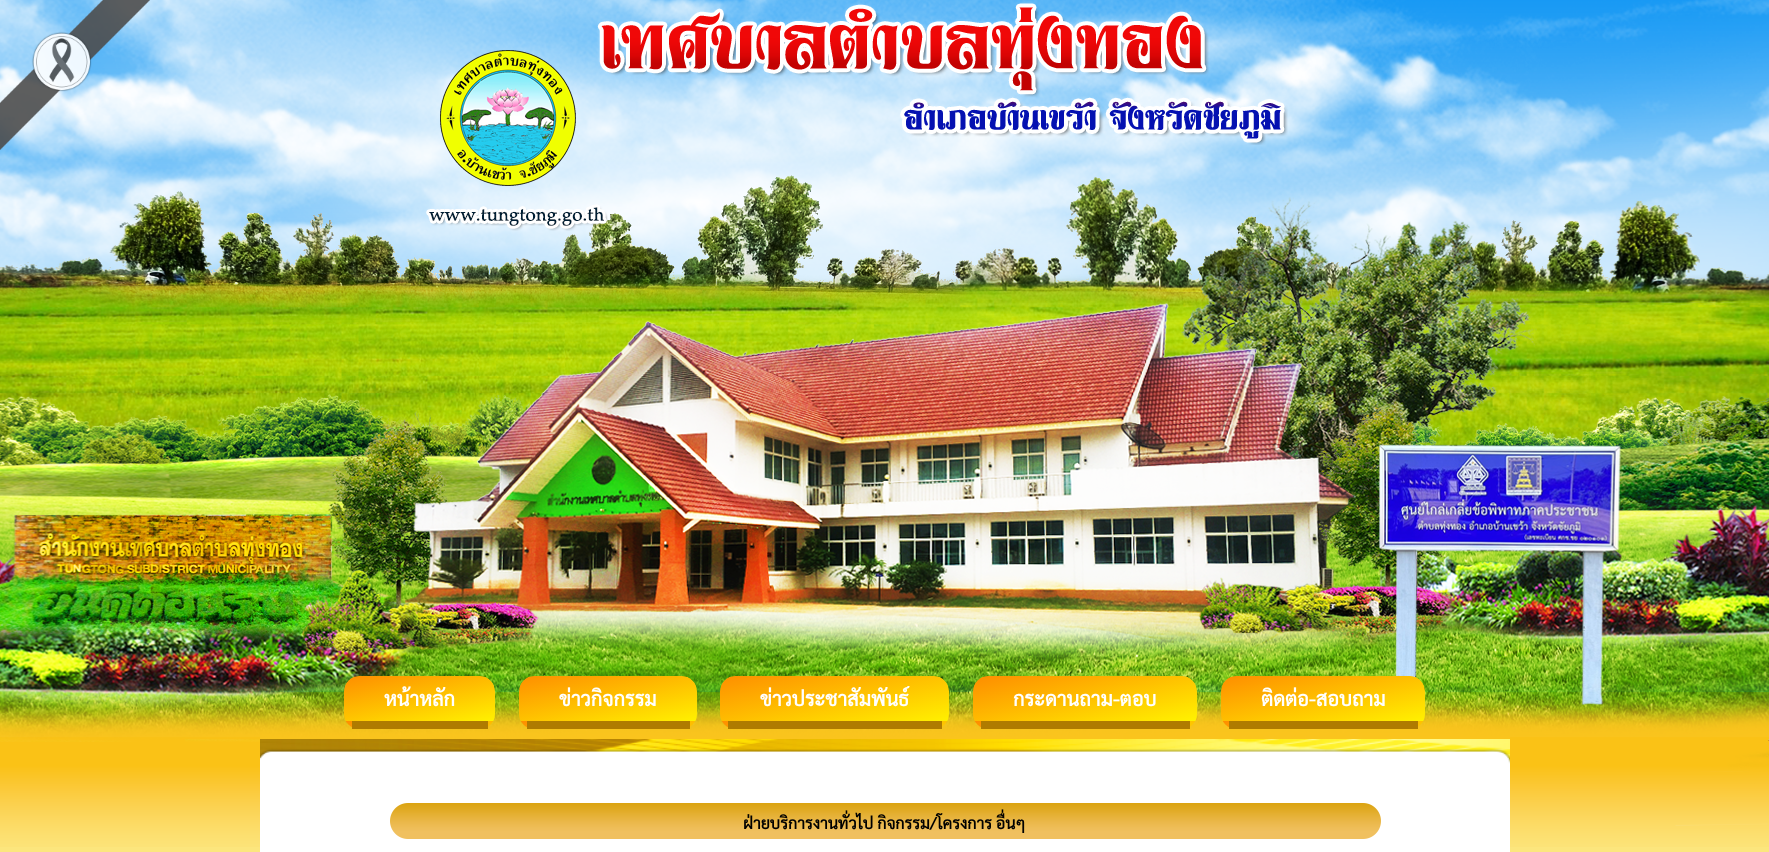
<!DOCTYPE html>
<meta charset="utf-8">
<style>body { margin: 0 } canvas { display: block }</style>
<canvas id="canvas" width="1769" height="852"></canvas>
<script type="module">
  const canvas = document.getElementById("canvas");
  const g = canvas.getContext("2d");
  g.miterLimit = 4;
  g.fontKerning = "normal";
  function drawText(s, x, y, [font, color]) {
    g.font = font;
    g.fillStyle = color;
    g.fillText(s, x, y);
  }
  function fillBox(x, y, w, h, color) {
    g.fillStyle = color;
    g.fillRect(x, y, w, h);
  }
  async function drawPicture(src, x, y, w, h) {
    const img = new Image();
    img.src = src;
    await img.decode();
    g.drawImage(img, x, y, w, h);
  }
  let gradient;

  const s1 = ["bold 20px Sarabun", "#FFFFFF"];
  const s2 = ["bold 16px Sarabun", "#000000"];

  fillBox(0, 0, 1769, 852, "#FCE67D");
  await drawPicture("pic2.png", 0, 0, 260, 739);
  await drawPicture("pic1.png", 0, 0, 150, 150);
  await drawPicture("pic3.png", 260, 0, 1250, 739);
  await drawPicture("pic4.png", 440, 50, 136, 136);
  await drawPicture("pic5.png", 597, 1, 691, 144);
  g.save();
  g.beginPath();
  g.roundRect(344, 676, 151, 53, 15);
  g.clip();
  gradient = g.createLinearGradient(428, 736, 411, 661);
  gradient.addColorStop(0, "#FFF100");
  gradient.addColorStop(1, "#FE8E00");
  g.fillStyle = gradient;
  g.beginPath();
  g.roundRect(344, 676, 151, 45, [15, 15, 0, 0]);
  g.fill();
  gradient = g.createLinearGradient(428, 781, 411, 706);
  gradient.addColorStop(0, "#FFF100");
  gradient.addColorStop(1, "#FE8E00");
  g.fillStyle = gradient;
  g.fillRect(344, 721, 151, 7);
  g.restore();
  fillBox(352, 721, 136, 8, "#AF7B00");
  drawText("หน้าหลัก", 384, 706, s1);
  g.save();
  g.beginPath();
  g.roundRect(519, 676, 178, 53, 15);
  g.clip();
  gradient = g.createLinearGradient(617, 739, 599, 658);
  gradient.addColorStop(0, "#FFF100");
  gradient.addColorStop(1, "#FE8E00");
  g.fillStyle = gradient;
  g.beginPath();
  g.roundRect(519, 676, 178, 45, [15, 15, 0, 0]);
  g.fill();
  gradient = g.createLinearGradient(617, 784, 599, 703);
  gradient.addColorStop(0, "#FFF100");
  gradient.addColorStop(1, "#FE8E00");
  g.fillStyle = gradient;
  g.fillRect(519, 721, 178, 7);
  g.restore();
  fillBox(527, 721, 163, 8, "#AF7B00");
  drawText("ข่าวกิจกรรม", 559, 706, s1);
  g.save();
  g.beginPath();
  g.roundRect(720, 676, 229, 53, 15);
  g.clip();
  gradient = g.createLinearGradient(845, 745, 824, 652);
  gradient.addColorStop(0, "#FFF100");
  gradient.addColorStop(1, "#FE8E00");
  g.fillStyle = gradient;
  g.beginPath();
  g.roundRect(720, 676, 229, 45, [15, 15, 0, 0]);
  g.fill();
  gradient = g.createLinearGradient(845, 790, 824, 697);
  gradient.addColorStop(0, "#FFF100");
  gradient.addColorStop(1, "#FE8E00");
  g.fillStyle = gradient;
  g.fillRect(720, 721, 229, 7);
  g.restore();
  fillBox(728, 721, 214, 8, "#AF7B00");
  drawText("ข่าวประชาสัมพันธ์", 760, 706, s1);
  g.save();
  g.beginPath();
  g.roundRect(973, 676, 224, 53, 15);
  g.clip();
  gradient = g.createLinearGradient(1096, 744, 1074, 653);
  gradient.addColorStop(0, "#FFF100");
  gradient.addColorStop(1, "#FE8E00");
  g.fillStyle = gradient;
  g.beginPath();
  g.roundRect(973, 676, 224, 45, [15, 15, 0, 0]);
  g.fill();
  gradient = g.createLinearGradient(1096, 789, 1074, 698);
  gradient.addColorStop(0, "#FFF100");
  gradient.addColorStop(1, "#FE8E00");
  g.fillStyle = gradient;
  g.fillRect(973, 721, 224, 7);
  g.restore();
  fillBox(981, 721, 209, 8, "#AF7B00");
  drawText("กระดานถาม-ตอบ", 1013, 706, s1);
  g.save();
  g.beginPath();
  g.roundRect(1221, 676, 204, 53, 15);
  g.clip();
  gradient = g.createLinearGradient(1333, 742, 1313, 655);
  gradient.addColorStop(0, "#FFF100");
  gradient.addColorStop(1, "#FE8E00");
  g.fillStyle = gradient;
  g.beginPath();
  g.roundRect(1221, 676, 204, 45, [15, 15, 0, 0]);
  g.fill();
  gradient = g.createLinearGradient(1333, 787, 1313, 700);
  gradient.addColorStop(0, "#FFF100");
  gradient.addColorStop(1, "#FE8E00");
  g.fillStyle = gradient;
  g.fillRect(1221, 721, 204, 7);
  g.restore();
  fillBox(1229, 721, 189, 8, "#AF7B00");
  drawText("ติดต่อ-สอบถาม", 1261, 706, s1);
  await drawPicture("pic6.png", 1510, 0, 259, 739);
  await drawPicture("pic7.png", 0, 739, 260, 108);
  fillBox(260, 764, 1250, 88, "#FFFFFF");
  await drawPicture("pic8.png", 260, 739, 1250, 25);
  await drawPicture("pic9.png", 390, 803, 991, 36);
  drawText("ฝ่ายบริการงานทั่วไป กิจกรรม/โครงการ อื่นๆ", 743, 829, s2);
  await drawPicture("pic10.png", 1510, 739, 259, 108);
</script>
